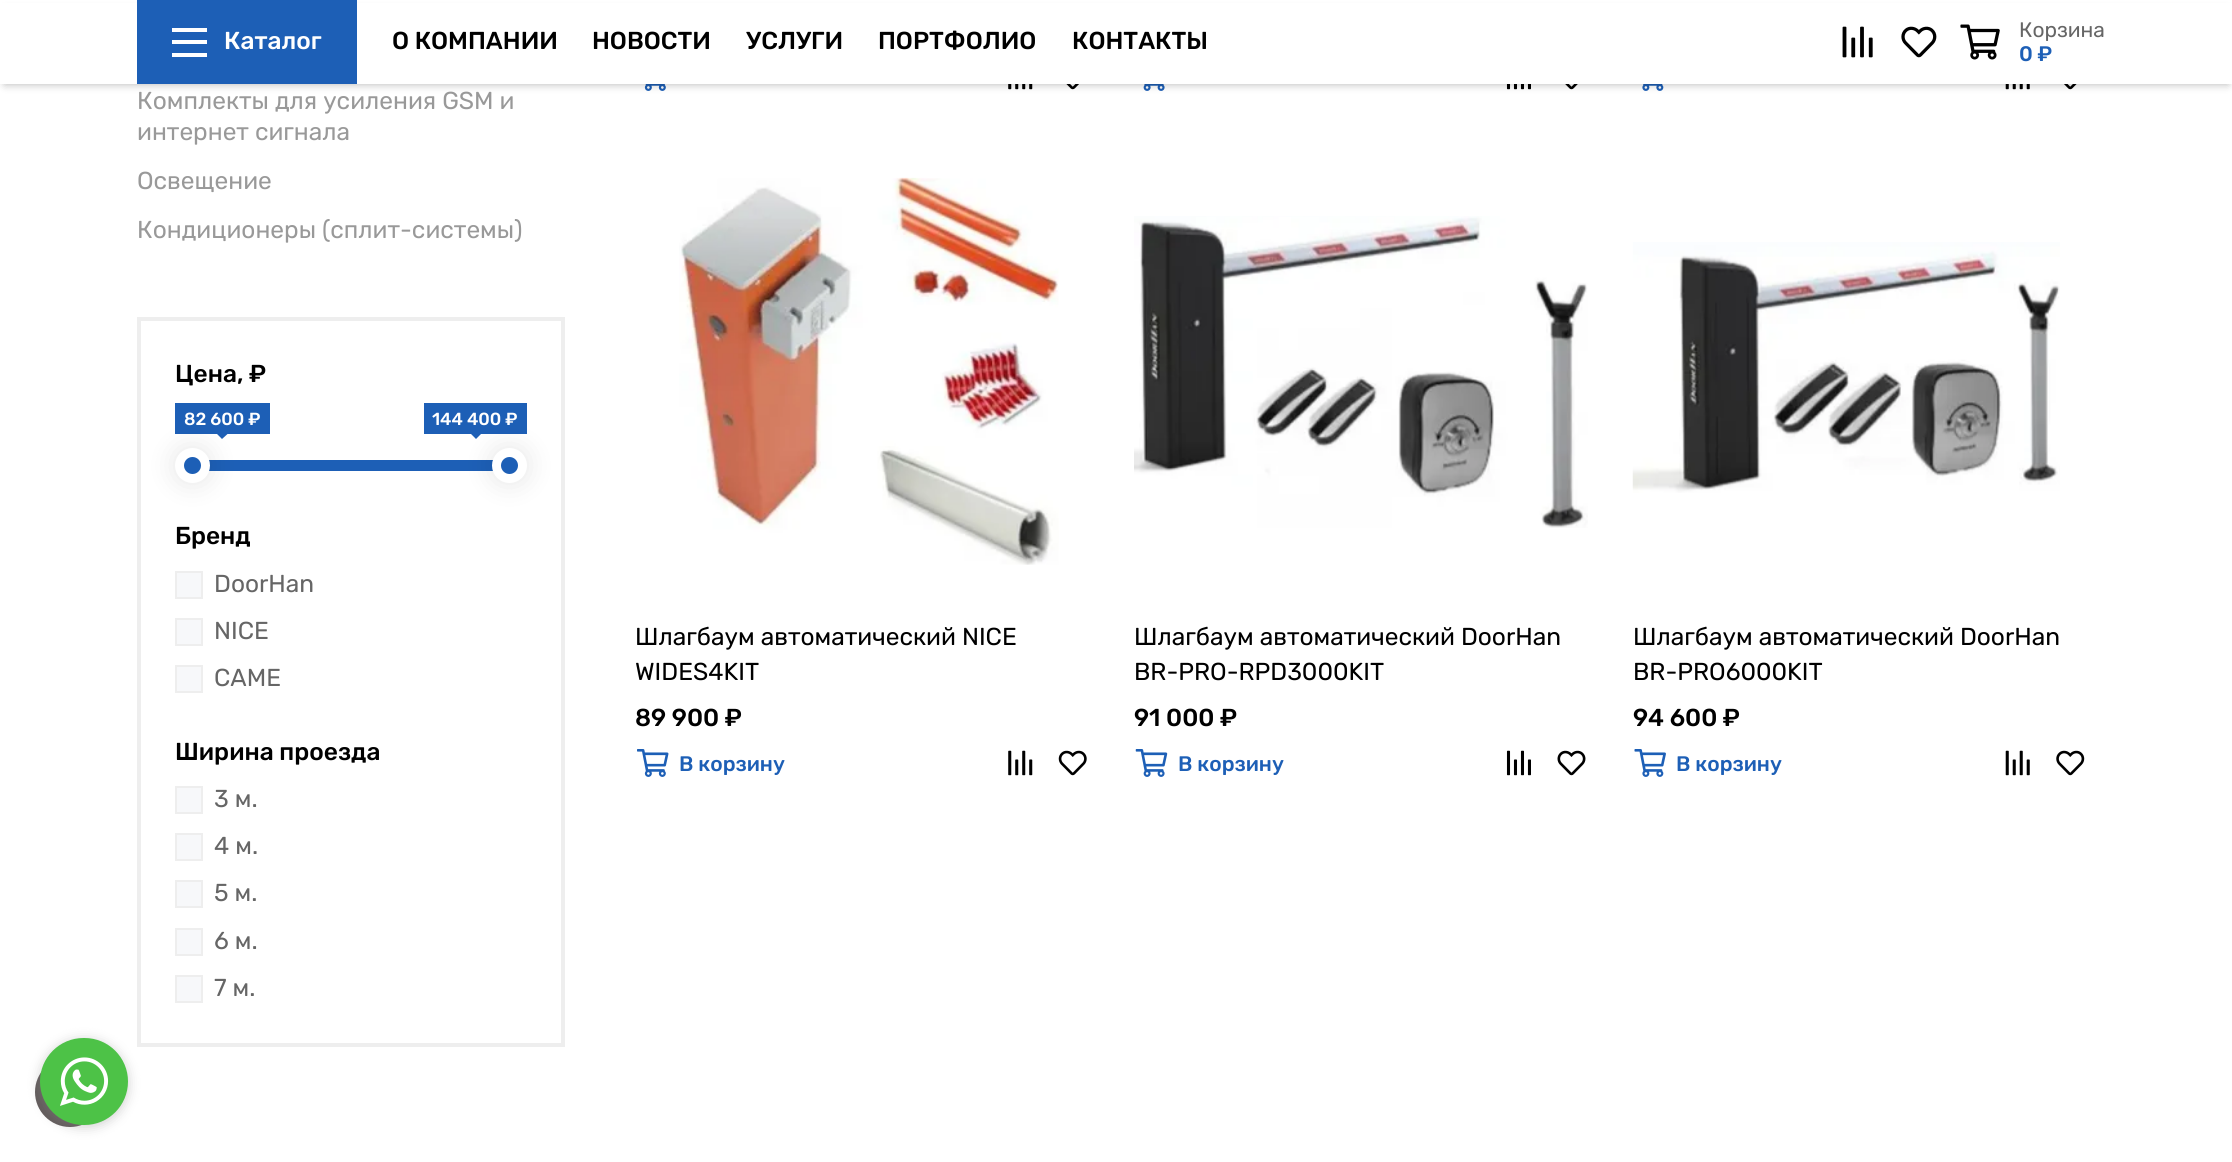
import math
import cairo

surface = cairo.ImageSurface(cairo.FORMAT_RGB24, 2232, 1162)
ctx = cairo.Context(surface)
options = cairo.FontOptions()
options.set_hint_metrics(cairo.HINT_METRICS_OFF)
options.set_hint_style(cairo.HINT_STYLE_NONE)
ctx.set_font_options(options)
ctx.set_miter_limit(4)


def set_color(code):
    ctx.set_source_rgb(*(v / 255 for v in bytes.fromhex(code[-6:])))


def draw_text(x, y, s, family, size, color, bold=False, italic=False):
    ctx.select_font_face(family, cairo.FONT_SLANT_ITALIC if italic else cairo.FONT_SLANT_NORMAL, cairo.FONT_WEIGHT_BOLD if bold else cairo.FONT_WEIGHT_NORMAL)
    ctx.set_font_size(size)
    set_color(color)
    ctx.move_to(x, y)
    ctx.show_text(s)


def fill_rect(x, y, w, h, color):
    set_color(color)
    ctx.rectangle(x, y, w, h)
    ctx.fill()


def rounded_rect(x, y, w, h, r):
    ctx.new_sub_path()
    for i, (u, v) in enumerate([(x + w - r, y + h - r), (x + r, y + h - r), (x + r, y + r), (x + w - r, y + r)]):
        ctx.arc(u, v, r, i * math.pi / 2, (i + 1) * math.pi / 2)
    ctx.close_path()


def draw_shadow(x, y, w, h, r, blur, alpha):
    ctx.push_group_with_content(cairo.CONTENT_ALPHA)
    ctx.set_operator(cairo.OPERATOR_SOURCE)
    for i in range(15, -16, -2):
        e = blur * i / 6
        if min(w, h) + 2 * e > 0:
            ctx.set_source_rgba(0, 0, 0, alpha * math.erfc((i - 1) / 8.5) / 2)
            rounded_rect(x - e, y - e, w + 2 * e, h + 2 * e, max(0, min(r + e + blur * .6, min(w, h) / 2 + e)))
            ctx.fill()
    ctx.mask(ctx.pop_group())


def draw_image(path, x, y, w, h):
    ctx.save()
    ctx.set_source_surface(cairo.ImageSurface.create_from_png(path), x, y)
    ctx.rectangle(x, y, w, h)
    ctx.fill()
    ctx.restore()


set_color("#ffffff")
ctx.paint()
draw_image("assets/img4.png", 644, 84, 22, 7)
draw_image("assets/img5.png", 1008, 84, 25, 6)
draw_image("assets/img6.png", 1066, 84, 13, 6)
draw_image("assets/img7.png", 1143, 84, 22, 7)
draw_image("assets/img8.png", 1506, 84, 25, 6)
draw_image("assets/img9.png", 1565, 84, 13, 6)
draw_image("assets/img10.png", 1642, 84, 22, 7)
draw_image("assets/img11.png", 2005, 84, 25, 6)
draw_image("assets/img12.png", 2064, 84, 13, 6)
set_color("#000000")
draw_shadow(5, 11, 2223, 73, 0, 4.5, 0.3)
fill_rect(0, 3, 2232, 81, "#ffffff")
fill_rect(137, 0, 220, 84, "#1d5fb6")
fill_rect(172, 28, 35, 4, "#ffffff")
fill_rect(172, 40, 35, 4, "#ffffff")
fill_rect(172, 53, 35, 4, "#ffffff")
draw_text(224, 49, "Каталог", "Rubik Medium", 24.5, "#ffffff")
draw_text(392, 49, "О КОМПАНИИ", "Rubik Medium", 24.5, "#000000")
draw_text(592, 49, "НОВОСТИ", "Rubik Medium", 24.5, "#000000")
draw_text(746, 49, "УСЛУГИ", "Rubik Medium", 24.5, "#000000")
draw_text(878, 49, "ПОРТФОЛИО", "Rubik Medium", 24.5, "#000000")
draw_text(1072, 49, "КОНТАКТЫ", "Rubik Medium", 24.5, "#000000")
draw_image("assets/img1.png", 1842, 26, 31, 32)
draw_image("assets/img2.png", 1901, 26, 36, 32)
draw_image("assets/img3.png", 1960, 24, 40, 36)
draw_text(2019, 37, "Корзина", "Rubik", 21, "#666666")
draw_text(2019, 61, "0 ₽", "Rubik Medium", 21, "#1d5fb6")
draw_text(137, 109, "Комплекты для усиления GSM и", "Rubik", 24.5, "#999999")
draw_text(137, 140, "интернет сигнала", "Rubik", 24.5, "#999999")
draw_text(137, 189, "Освещение", "Rubik", 24.5, "#999999")
draw_text(137, 238, "Кондиционеры (сплит-системы)", "Rubik", 24.5, "#999999")
ctx.rectangle(139, 319, 424, 726)
set_color("#eeeeee")
ctx.set_line_width(4)
ctx.stroke()
draw_text(175, 382, "Цена, ₽", "Rubik Medium", 24.5, "#000000")
fill_rect(175, 403, 95, 31, "#1d5fb6")
ctx.new_path()
ctx.move_to(217, 434)
ctx.line_to(227.5, 434)
ctx.line_to(222, 439)
ctx.close_path()
ctx.fill()
fill_rect(209, 460, 284, 11, "#1d5fb6")
set_color("#000000")
draw_shadow(175, 448, 35, 35, 17.5, 13, 0.1)
set_color("#1d5fb6")
ctx.arc(192.5, 465.5, 13, 0, 2 * math.pi)
ctx.fill_preserve()
set_color("#ffffff")
ctx.set_line_width(9)
ctx.stroke()
fill_rect(424, 403, 103, 31, "#1d5fb6")
ctx.new_path()
ctx.move_to(471, 434)
ctx.line_to(481, 434)
ctx.line_to(476, 439)
ctx.close_path()
ctx.fill()
set_color("#000000")
draw_shadow(492, 448, 35, 35, 17.5, 13, 0.1)
set_color("#1d5fb6")
ctx.arc(509.5, 465.5, 13, 0, 2 * math.pi)
ctx.fill_preserve()
set_color("#ffffff")
ctx.stroke()
draw_text(184, 425, "82 600 ₽", "Rubik Medium", 17.5, "#ffffff")
draw_text(432, 425, "144 400 ₽", "Rubik Medium", 17.5, "#ffffff")
draw_text(175, 544, "Бренд", "Rubik Medium", 24.5, "#000000")
set_color("#f7f8fa")
ctx.rectangle(176, 572, 26, 26)
ctx.fill_preserve()
set_color("#eeeeee")
ctx.set_line_width(2)
ctx.stroke()
draw_text(214, 592, "DoorHan", "Rubik", 24.5, "#666666")
set_color("#f7f8fa")
ctx.rectangle(176, 619, 26, 26)
ctx.fill_preserve()
set_color("#eeeeee")
ctx.stroke()
draw_text(214, 639, "NICE", "Rubik", 24.5, "#666666")
set_color("#f7f8fa")
ctx.rectangle(176, 666, 26, 26)
ctx.fill_preserve()
set_color("#eeeeee")
ctx.stroke()
draw_text(214, 686, "CAME", "Rubik", 24.5, "#666666")
draw_text(175, 760, "Ширина проезда", "Rubik Medium", 24.5, "#000000")
set_color("#f7f8fa")
ctx.rectangle(176, 787, 26, 26)
ctx.fill_preserve()
set_color("#eeeeee")
ctx.stroke()
draw_text(214, 807, "3 м.", "Rubik", 24.5, "#666666")
set_color("#f7f8fa")
ctx.rectangle(176, 834, 26, 26)
ctx.fill_preserve()
set_color("#eeeeee")
ctx.stroke()
draw_text(214, 854, "4 м.", "Rubik", 24.5, "#666666")
set_color("#f7f8fa")
ctx.rectangle(176, 881, 26, 26)
ctx.fill_preserve()
set_color("#eeeeee")
ctx.stroke()
draw_text(214, 901, "5 м.", "Rubik", 24.5, "#666666")
set_color("#f7f8fa")
ctx.rectangle(176, 929, 26, 26)
ctx.fill_preserve()
set_color("#eeeeee")
ctx.stroke()
draw_text(214, 949, "6 м.", "Rubik", 24.5, "#666666")
set_color("#f7f8fa")
ctx.rectangle(176, 976, 26, 26)
ctx.fill_preserve()
set_color("#eeeeee")
ctx.stroke()
draw_text(214, 996, "7 м.", "Rubik", 24.5, "#666666")
draw_image("assets/img13.png", 679, 177, 380, 388)
draw_text(635, 645, "Шлагбаум автоматический NICE", "Rubik", 24.5, "#000000")
draw_text(635, 680, "WIDES4KIT", "Rubik", 24.5, "#000000")
draw_text(635, 726, "89 900 ₽", "Rubik Medium", 24.5, "#000000")
draw_image("assets/img14.png", 637, 749, 32, 28)
draw_text(679, 771, "В корзину", "Rubik Medium", 21, "#1d5fb6")
draw_image("assets/img15.png", 1008, 750, 25, 26)
draw_image("assets/img16.png", 1058, 750, 29, 26)
draw_image("assets/img17.png", 1134, 216, 454, 312)
draw_text(1134, 645, "Шлагбаум автоматический DoorHan", "Rubik", 24.5, "#000000")
draw_text(1134, 680, "BR-PRO-RPD3000KIT", "Rubik", 24.5, "#000000")
draw_text(1134, 726, "91 000 ₽", "Rubik Medium", 24.5, "#000000")
draw_image("assets/img18.png", 1135, 749, 33, 28)
draw_text(1178, 771, "В корзину", "Rubik Medium", 21, "#1d5fb6")
draw_image("assets/img19.png", 1506, 750, 25, 26)
draw_image("assets/img20.png", 1557, 750, 29, 26)
draw_image("assets/img21.png", 1632, 242, 428, 251)
draw_text(1633, 645, "Шлагбаум автоматический DoorHan", "Rubik", 24.5, "#000000")
draw_text(1633, 680, "BR-PRO6000KIT", "Rubik", 24.5, "#000000")
draw_text(1633, 726, "94 600 ₽", "Rubik Medium", 24.5, "#000000")
draw_image("assets/img22.png", 1634, 749, 32, 28)
draw_text(1676, 771, "В корзину", "Rubik Medium", 21, "#1d5fb6")
draw_image("assets/img23.png", 2005, 750, 25, 26)
draw_image("assets/img24.png", 2056, 750, 29, 26)
set_color("#615a5a")
ctx.arc(70, 1092, 35, 0, 2 * math.pi)
ctx.fill()
set_color("#888888")
draw_shadow(40, 1040, 88, 87, 43.5, 6, 0.4)
set_color("#4dc247")
rounded_rect(40, 1038, 88, 87, 43.5)
ctx.fill()
draw_image("assets/img25.png", 60, 1057, 49, 49)
surface.write_to_png("output.png")
